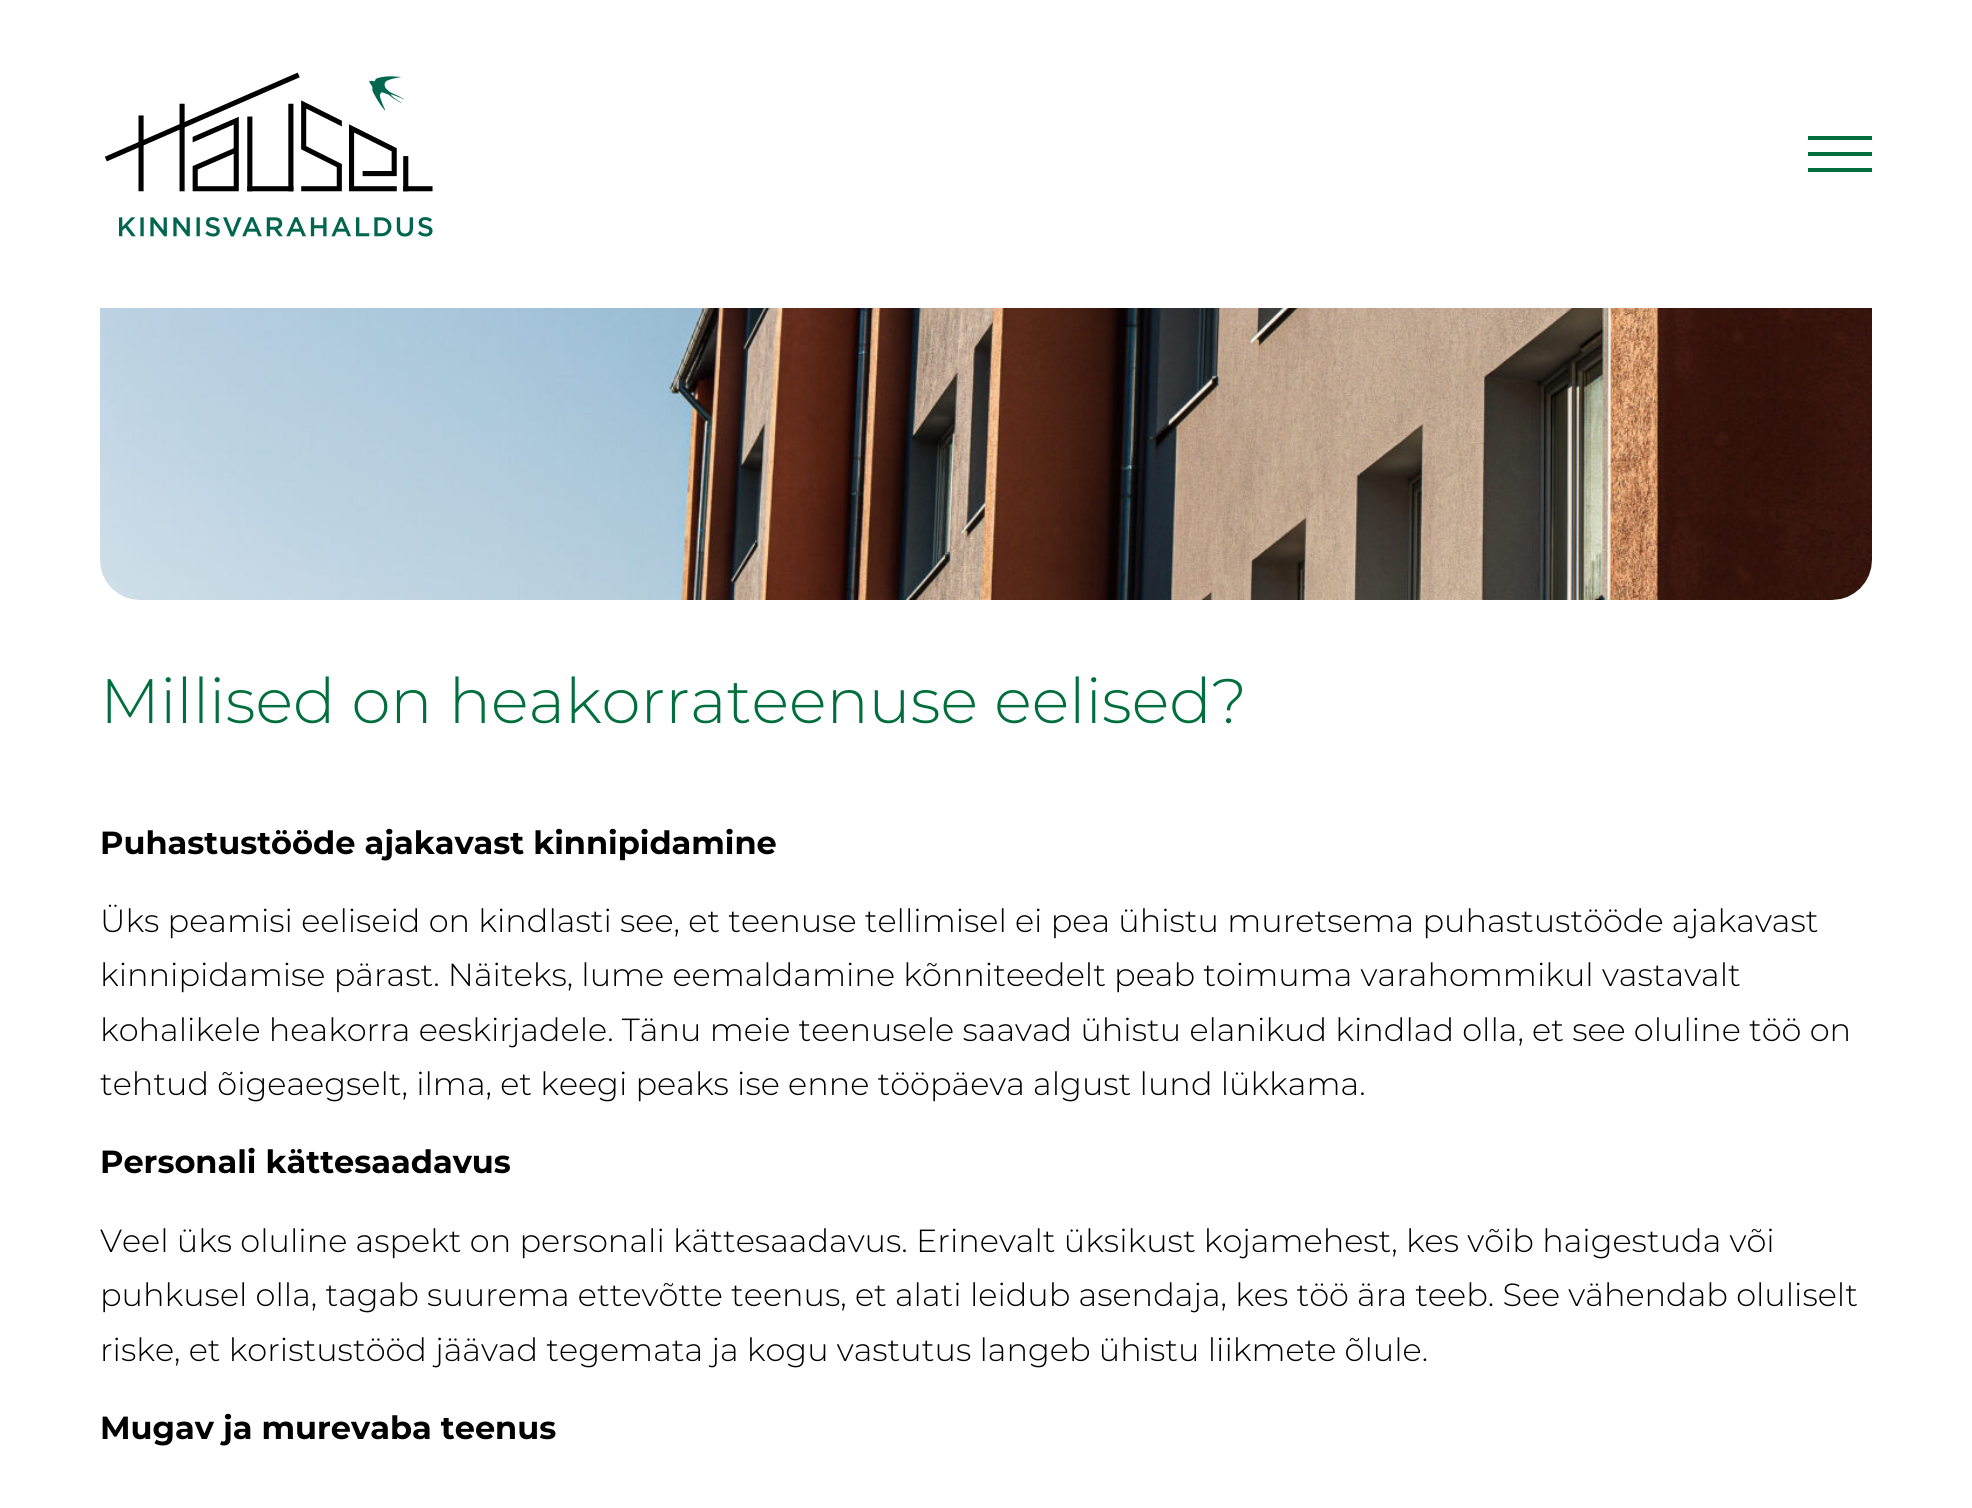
import math
import cairo

surface = cairo.ImageSurface(cairo.FORMAT_RGB24, 1972, 1508)
ctx = cairo.Context(surface)
options = cairo.FontOptions()
options.set_hint_metrics(cairo.HINT_METRICS_OFF)
options.set_hint_style(cairo.HINT_STYLE_NONE)
ctx.set_font_options(options)
ctx.set_miter_limit(4)


def set_color(code):
    ctx.set_source_rgb(*(v / 255 for v in bytes.fromhex(code[-6:])))


def draw_text(x, y, s, family, size, color, bold=False, italic=False):
    ctx.select_font_face(family, cairo.FONT_SLANT_ITALIC if italic else cairo.FONT_SLANT_NORMAL, cairo.FONT_WEIGHT_BOLD if bold else cairo.FONT_WEIGHT_NORMAL)
    ctx.set_font_size(size)
    set_color(color)
    ctx.move_to(x, y)
    ctx.show_text(s)


def fill_rect(x, y, w, h, color):
    set_color(color)
    ctx.rectangle(x, y, w, h)
    ctx.fill()


def draw_image(path, x, y, w, h):
    ctx.save()
    ctx.set_source_surface(cairo.ImageSurface.create_from_png(path), x, y)
    ctx.rectangle(x, y, w, h)
    ctx.fill()
    ctx.restore()


set_color("#ffffff")
ctx.paint()
draw_image("assets/img1.png", 104, 72, 329, 165)
fill_rect(1808, 136, 64, 4, "#016f3d")
fill_rect(1808, 152, 64, 4, "#016f3d")
fill_rect(1808, 168, 64, 4, "#016f3d")
draw_image("assets/img2.png", 100, 308, 1772, 292)
draw_text(100, 723, "Millised on heakorrateenuse eelised?", "Montserrat Light", 62.75, "#016f3d")
draw_text(100, 854, "Puhastustööde ajakavast kinnipidamine", "Montserrat", 32, "#000000", bold=True)
draw_text(100, 932, "Üks peamisi eeliseid on kindlasti see, et teenuse tellimisel ei pea ühistu muretsema puhastustööde ajakavast", "Montserrat Light", 32, "#000000")
draw_text(100, 986, "kinnipidamise pärast. Näiteks, lume eemaldamine kõnniteedelt peab toimuma varahommikul vastavalt", "Montserrat Light", 32, "#000000")
draw_text(100, 1041, "kohalikele heakorra eeskirjadele. Tänu meie teenusele saavad ühistu elanikud kindlad olla, et see oluline töö on", "Montserrat Light", 32, "#000000")
draw_text(100, 1095, "tehtud õigeaegselt, ilma, et keegi peaks ise enne tööpäeva algust lund lükkama.", "Montserrat Light", 32, "#000000")
draw_text(100, 1173, "Personali kättesaadavus", "Montserrat", 32, "#000000", bold=True)
draw_text(100, 1252, "Veel üks oluline aspekt on personali kättesaadavus. Erinevalt üksikust kojamehest, kes võib haigestuda või", "Montserrat Light", 32, "#000000")
draw_text(100, 1306, "puhkusel olla, tagab suurema ettevõtte teenus, et alati leidub asendaja, kes töö ära teeb. See vähendab oluliselt", "Montserrat Light", 32, "#000000")
draw_text(100, 1361, "riske, et koristustööd jäävad tegemata ja kogu vastutus langeb ühistu liikmete õlule.", "Montserrat Light", 32, "#000000")
draw_text(100, 1439, "Mugav ja murevaba teenus", "Montserrat", 32, "#000000", bold=True)
surface.write_to_png("output.png")
